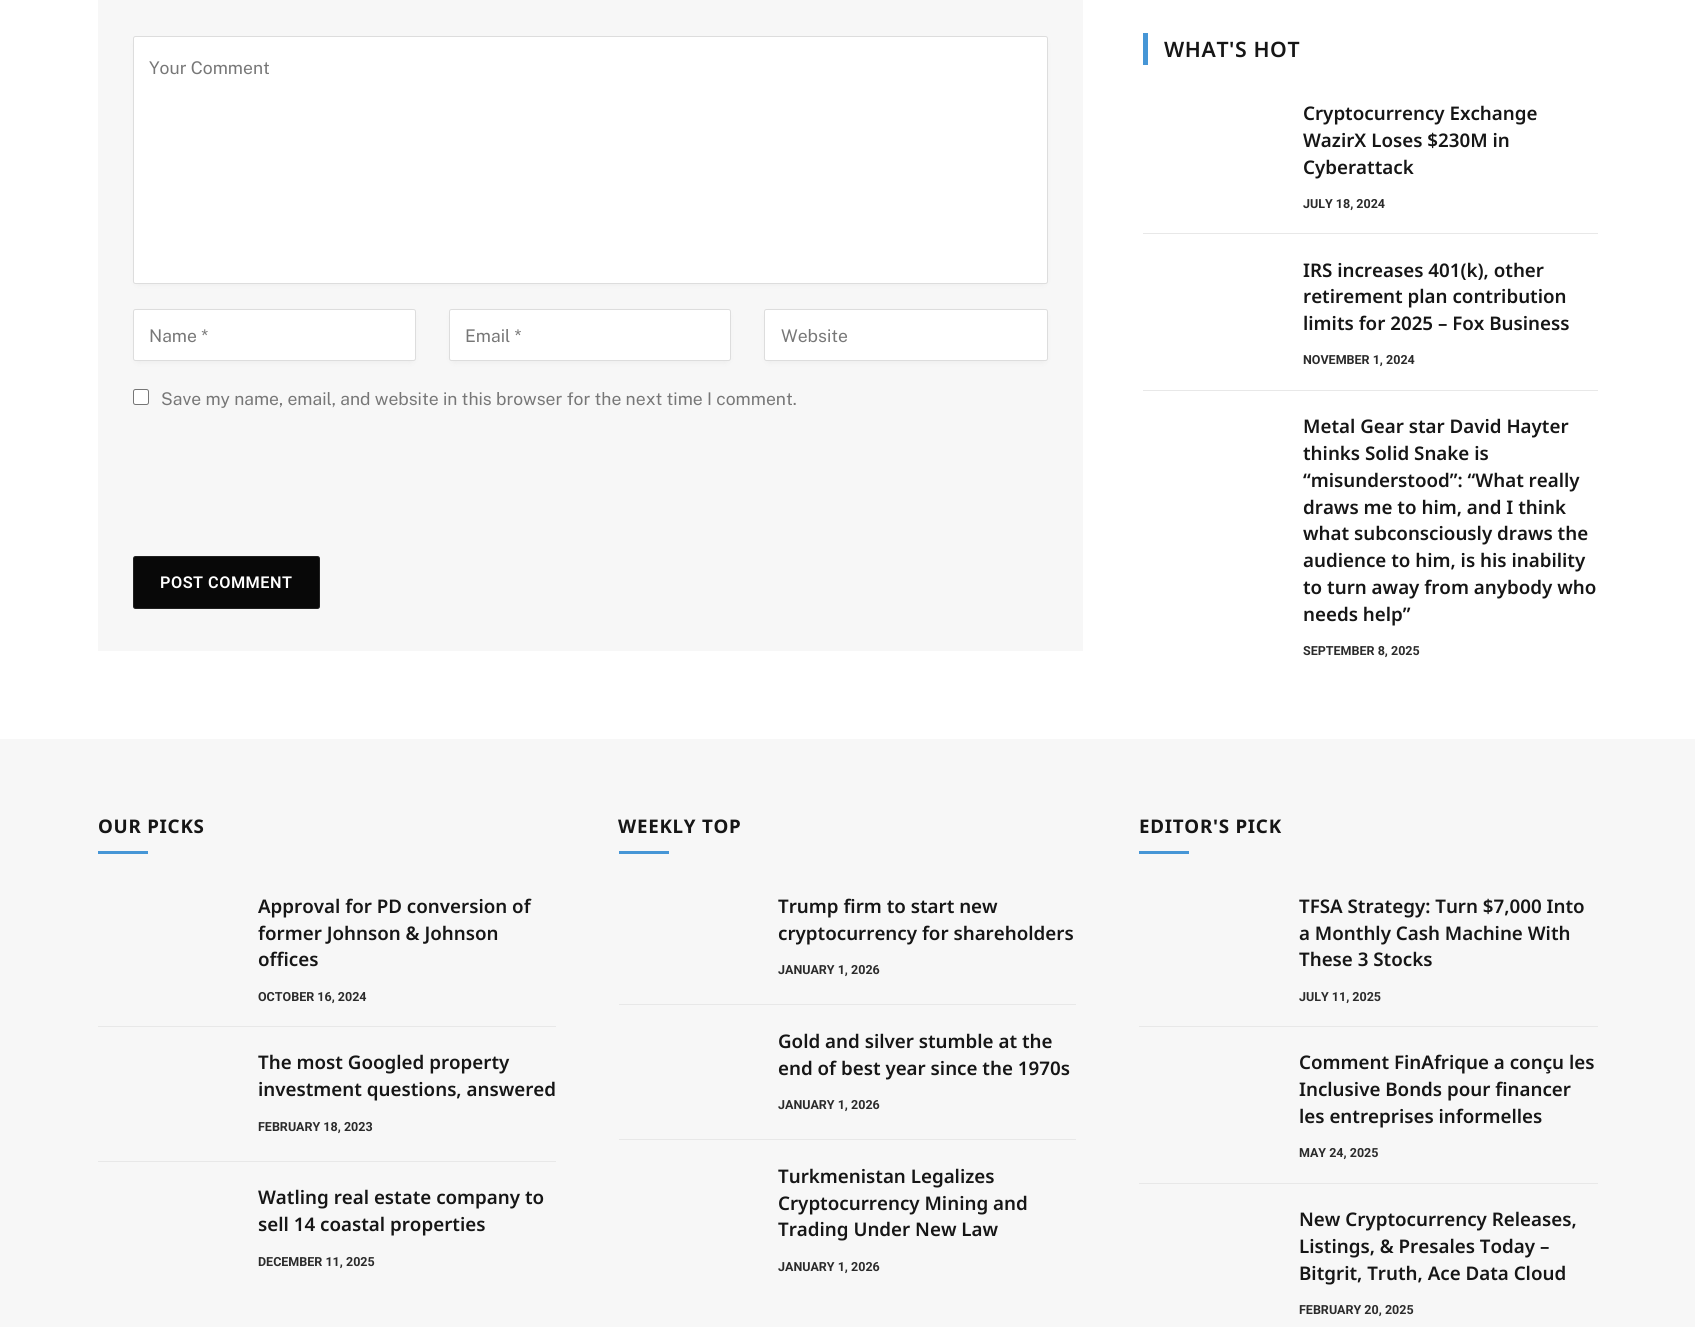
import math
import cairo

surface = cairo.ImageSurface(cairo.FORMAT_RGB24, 1695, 1327)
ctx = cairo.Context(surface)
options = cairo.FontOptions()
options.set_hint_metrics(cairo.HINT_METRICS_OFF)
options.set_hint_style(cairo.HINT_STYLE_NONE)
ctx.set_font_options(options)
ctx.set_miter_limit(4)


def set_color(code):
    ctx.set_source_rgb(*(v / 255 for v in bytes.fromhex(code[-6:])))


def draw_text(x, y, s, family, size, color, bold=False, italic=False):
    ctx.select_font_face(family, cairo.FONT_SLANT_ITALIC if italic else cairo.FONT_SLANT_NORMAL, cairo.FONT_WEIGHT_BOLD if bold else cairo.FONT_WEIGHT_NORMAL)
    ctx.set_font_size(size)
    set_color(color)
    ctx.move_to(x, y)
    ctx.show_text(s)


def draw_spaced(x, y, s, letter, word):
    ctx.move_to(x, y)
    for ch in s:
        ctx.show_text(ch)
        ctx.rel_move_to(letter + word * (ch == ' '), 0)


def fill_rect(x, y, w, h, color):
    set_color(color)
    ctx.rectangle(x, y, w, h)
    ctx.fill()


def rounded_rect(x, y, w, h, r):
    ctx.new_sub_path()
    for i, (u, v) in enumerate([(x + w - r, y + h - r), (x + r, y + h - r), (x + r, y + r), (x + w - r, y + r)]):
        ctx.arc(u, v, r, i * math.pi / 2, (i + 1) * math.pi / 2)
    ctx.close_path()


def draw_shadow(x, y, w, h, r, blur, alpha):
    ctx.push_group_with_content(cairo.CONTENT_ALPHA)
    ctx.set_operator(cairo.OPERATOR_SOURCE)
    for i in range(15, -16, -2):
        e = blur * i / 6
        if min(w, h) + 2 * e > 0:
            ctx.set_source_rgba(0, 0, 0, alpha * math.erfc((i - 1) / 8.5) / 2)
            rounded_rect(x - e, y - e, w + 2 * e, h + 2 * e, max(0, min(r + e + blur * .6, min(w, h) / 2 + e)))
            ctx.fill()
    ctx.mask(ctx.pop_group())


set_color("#ffffff")
ctx.paint()
fill_rect(98, 0, 985, 651, "#f7f7f7")
set_color("#000000")
draw_shadow(138, 44, 905, 237, 0, 4.5, 0.1)
set_color("#ffffff")
rounded_rect(133.5, 36.5, 914, 247, 2)
ctx.fill_preserve()
set_color("#dddddd")
ctx.set_line_width(1)
ctx.stroke()
draw_text(149, 74, "Your Comment", "Public Sans", 17.5, "#777777")
set_color("#000000")
draw_shadow(138, 316, 273, 43, 0, 4.5, 0.1)
set_color("#ffffff")
rounded_rect(133.5, 309.5, 282, 51, 2)
ctx.fill_preserve()
set_color("#dddddd")
ctx.stroke()
draw_text(149, 342, "Name *", "Public Sans", 17.5, "#777777")
set_color("#000000")
draw_shadow(454, 316, 272, 43, 0, 4.5, 0.1)
set_color("#ffffff")
rounded_rect(449.5, 309.5, 281, 51, 2)
ctx.fill_preserve()
set_color("#dddddd")
ctx.stroke()
draw_text(465, 342, "Email *", "Public Sans", 17.5, "#777777")
set_color("#000000")
draw_shadow(769, 316, 274, 43, 0, 4.5, 0.1)
set_color("#ffffff")
rounded_rect(764.5, 309.5, 283, 51, 2)
ctx.fill_preserve()
set_color("#dddddd")
ctx.stroke()
draw_text(781, 342, "Website", "Public Sans", 17.5, "#777777")
set_color("#ffffff")
rounded_rect(133.5, 389.5, 15, 15, 2)
ctx.fill_preserve()
set_color("#767676")
ctx.stroke()
draw_text(161, 405, "Save my name, email, and website in this browser for the next time I comment.", "Public Sans", 17.5, "#777777")
set_color("#080808")
rounded_rect(133, 556, 187, 53, 2.5)
ctx.fill()
rounded_rect(133.5, 556.5, 186, 52, 2)
ctx.set_source_rgba(1, 1, 1, 0.1)
ctx.stroke()
ctx.select_font_face("Roboto SemiBold")
ctx.set_font_size(16.25)
set_color("#ffffff")
draw_spaced(160, 588, "POST COMMENT", 0.5, 0)
fill_rect(1143, 33, 5, 32, "#4696d6")
ctx.select_font_face("Noto Sans SemiBold")
ctx.set_font_size(21.25)
set_color("#161616")
draw_spaced(1164, 57, "WHAT'S HOT", 0.6, 0)
draw_text(1303, 120, "Cryptocurrency Exchange", "Noto Sans SemiBold", 18.75, "#161616")
draw_text(1303, 147, "WazirX Loses $230M in", "Noto Sans SemiBold", 18.75, "#161616")
draw_text(1303, 174, "Cyberattack", "Noto Sans SemiBold", 18.75, "#161616")
draw_text(1303, 208, "JULY 18, 2024", "Roboto", 12.5, "#2b2b2b", bold=True)
fill_rect(1143, 233, 455, 1, "#e8e8e8")
draw_text(1303, 277, "IRS increases 401(k), other", "Noto Sans SemiBold", 18.75, "#161616")
draw_text(1303, 303, "retirement plan contribution", "Noto Sans SemiBold", 18.75, "#161616")
draw_text(1303, 330, "limits for 2025 – Fox Business", "Noto Sans SemiBold", 18.75, "#161616")
draw_text(1303, 364, "NOVEMBER 1, 2024", "Roboto", 12.5, "#2b2b2b", bold=True)
fill_rect(1143, 390, 455, 1, "#e8e8e8")
draw_text(1303, 433, "Metal Gear star David Hayter", "Noto Sans SemiBold", 18.75, "#161616")
draw_text(1303, 460, "thinks Solid Snake is", "Noto Sans SemiBold", 18.75, "#161616")
draw_text(1303, 487, "“misunderstood”: “What really", "Noto Sans SemiBold", 18.75, "#161616")
draw_text(1303, 514, "draws me to him, and I think", "Noto Sans SemiBold", 18.75, "#161616")
draw_text(1303, 540, "what subconsciously draws the", "Noto Sans SemiBold", 18.75, "#161616")
draw_text(1303, 567, "audience to him, is his inability", "Noto Sans SemiBold", 18.75, "#161616")
draw_text(1303, 594, "to turn away from anybody who", "Noto Sans SemiBold", 18.75, "#161616")
draw_text(1303, 621, "needs help”", "Noto Sans SemiBold", 18.75, "#161616")
draw_text(1303, 655, "SEPTEMBER 8, 2025", "Roboto", 12.5, "#2b2b2b", bold=True)
fill_rect(0, 739, 1695, 588, "#f7f7f7")
ctx.select_font_face("Noto Sans", cairo.FONT_SLANT_NORMAL, cairo.FONT_WEIGHT_BOLD)
ctx.set_font_size(18.75)
set_color("#161616")
draw_spaced(98, 833, "OUR PICKS", 0.75, 0)
fill_rect(98, 851, 50, 3, "#4696d6")
draw_text(258, 913, "Approval for PD conversion of", "Noto Sans SemiBold", 18.75, "#161616")
draw_text(258, 940, "former Johnson & Johnson", "Noto Sans SemiBold", 18.75, "#161616")
draw_text(258, 966, "offices", "Noto Sans SemiBold", 18.75, "#161616")
draw_text(258, 1001, "OCTOBER 16, 2024", "Roboto", 12.5, "#2b2b2b", bold=True)
fill_rect(98, 1026, 458, 1, "#e8e8e8")
draw_text(258, 1069, "The most Googled property", "Noto Sans SemiBold", 18.75, "#161616")
draw_text(258, 1096, "investment questions, answered", "Noto Sans SemiBold", 18.75, "#161616")
draw_text(258, 1131, "FEBRUARY 18, 2023", "Roboto", 12.5, "#2b2b2b", bold=True)
fill_rect(98, 1161, 458, 1, "#e8e8e8")
draw_text(258, 1204, "Watling real estate company to", "Noto Sans SemiBold", 18.75, "#161616")
draw_text(258, 1231, "sell 14 coastal properties", "Noto Sans SemiBold", 18.75, "#161616")
draw_text(258, 1266, "DECEMBER 11, 2025", "Roboto", 12.5, "#2b2b2b", bold=True)
ctx.select_font_face("Noto Sans", cairo.FONT_SLANT_NORMAL, cairo.FONT_WEIGHT_BOLD)
ctx.set_font_size(18.75)
set_color("#161616")
draw_spaced(618, 833, "WEEKLY TOP", 0.75, 0)
fill_rect(619, 851, 50, 3, "#4696d6")
draw_text(778, 913, "Trump firm to start new", "Noto Sans SemiBold", 18.75, "#161616")
draw_text(778, 940, "cryptocurrency for shareholders", "Noto Sans SemiBold", 18.75, "#161616")
draw_text(778, 974, "JANUARY 1, 2026", "Roboto", 12.5, "#2b2b2b", bold=True)
fill_rect(619, 1004, 457, 1, "#e8e8e8")
draw_text(778, 1048, "Gold and silver stumble at the", "Noto Sans SemiBold", 18.75, "#161616")
draw_text(778, 1075, "end of best year since the 1970s", "Noto Sans SemiBold", 18.75, "#161616")
draw_text(778, 1109, "JANUARY 1, 2026", "Roboto", 12.5, "#2b2b2b", bold=True)
fill_rect(619, 1139, 457, 1, "#e8e8e8")
draw_text(778, 1183, "Turkmenistan Legalizes", "Noto Sans SemiBold", 18.75, "#161616")
draw_text(778, 1210, "Cryptocurrency Mining and", "Noto Sans SemiBold", 18.75, "#161616")
draw_text(778, 1236, "Trading Under New Law", "Noto Sans SemiBold", 18.75, "#161616")
draw_text(778, 1271, "JANUARY 1, 2026", "Roboto", 12.5, "#2b2b2b", bold=True)
ctx.select_font_face("Noto Sans", cairo.FONT_SLANT_NORMAL, cairo.FONT_WEIGHT_BOLD)
ctx.set_font_size(18.75)
set_color("#161616")
draw_spaced(1139, 833, "EDITOR'S PICK", 0.75, 0)
fill_rect(1139, 851, 50, 3, "#4696d6")
draw_text(1299, 913, "TFSA Strategy: Turn $7,000 Into", "Noto Sans SemiBold", 18.75, "#161616")
draw_text(1299, 940, "a Monthly Cash Machine With", "Noto Sans SemiBold", 18.75, "#161616")
draw_text(1299, 966, "These 3 Stocks", "Noto Sans SemiBold", 18.75, "#161616")
draw_text(1299, 1001, "JULY 11, 2025", "Roboto", 12.5, "#2b2b2b", bold=True)
fill_rect(1139, 1026, 459, 1, "#e8e8e8")
draw_text(1299, 1069, "Comment FinAfrique a conçu les", "Noto Sans SemiBold", 18.75, "#161616")
draw_text(1299, 1096, "Inclusive Bonds pour financer", "Noto Sans SemiBold", 18.75, "#161616")
draw_text(1299, 1123, "les entreprises informelles", "Noto Sans SemiBold", 18.75, "#161616")
draw_text(1299, 1157, "MAY 24, 2025", "Roboto", 12.5, "#2b2b2b", bold=True)
fill_rect(1139, 1183, 459, 1, "#e8e8e8")
draw_text(1299, 1226, "New Cryptocurrency Releases,", "Noto Sans SemiBold", 18.75, "#161616")
draw_text(1299, 1253, "Listings, & Presales Today –", "Noto Sans SemiBold", 18.75, "#161616")
draw_text(1299, 1280, "Bitgrit, Truth, Ace Data Cloud", "Noto Sans SemiBold", 18.75, "#161616")
draw_text(1299, 1314, "FEBRUARY 20, 2025", "Roboto", 12.5, "#2b2b2b", bold=True)
surface.write_to_png("output.png")
